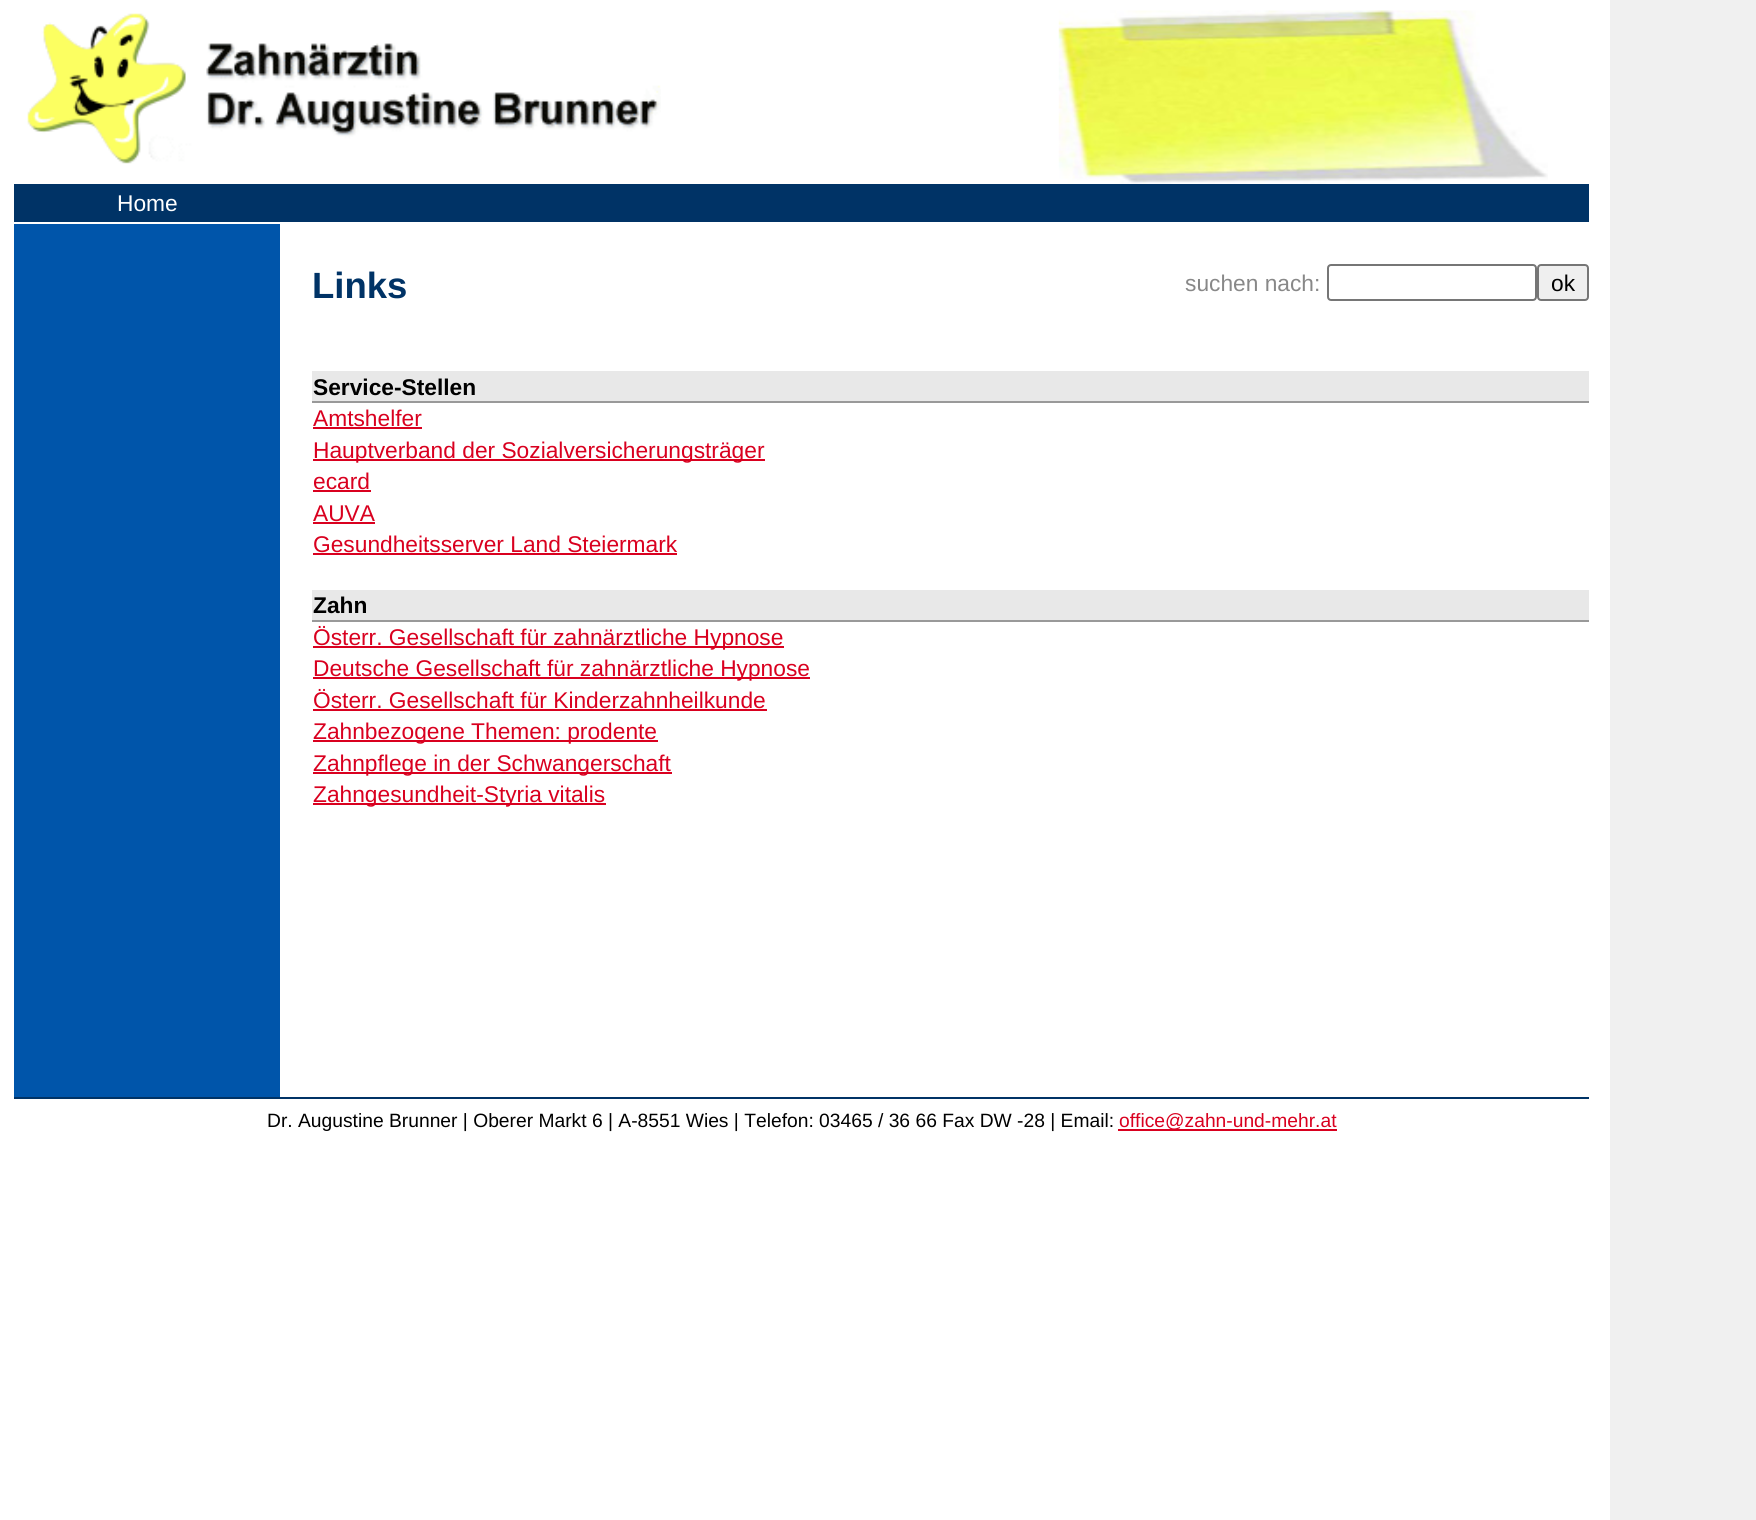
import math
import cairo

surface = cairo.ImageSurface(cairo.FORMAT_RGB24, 1756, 1520)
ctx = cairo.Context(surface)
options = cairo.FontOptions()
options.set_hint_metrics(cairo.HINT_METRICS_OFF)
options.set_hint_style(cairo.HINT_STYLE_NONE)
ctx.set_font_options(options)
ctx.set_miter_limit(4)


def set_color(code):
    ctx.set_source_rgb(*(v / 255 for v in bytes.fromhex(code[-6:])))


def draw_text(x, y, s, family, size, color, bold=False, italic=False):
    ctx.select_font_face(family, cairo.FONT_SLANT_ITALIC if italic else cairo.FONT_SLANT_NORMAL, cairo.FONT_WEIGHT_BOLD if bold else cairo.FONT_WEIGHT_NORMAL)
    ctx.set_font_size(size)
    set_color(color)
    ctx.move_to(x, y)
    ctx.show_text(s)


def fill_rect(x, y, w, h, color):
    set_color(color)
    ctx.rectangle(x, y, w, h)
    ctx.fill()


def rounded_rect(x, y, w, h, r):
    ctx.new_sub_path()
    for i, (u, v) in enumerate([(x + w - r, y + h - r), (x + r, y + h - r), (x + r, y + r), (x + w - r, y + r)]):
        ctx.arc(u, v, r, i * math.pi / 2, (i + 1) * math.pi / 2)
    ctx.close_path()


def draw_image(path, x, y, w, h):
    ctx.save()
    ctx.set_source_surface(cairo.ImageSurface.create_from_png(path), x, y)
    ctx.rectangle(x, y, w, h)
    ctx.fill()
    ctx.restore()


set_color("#ffffff")
ctx.paint()
fill_rect(1610, 0, 146, 1520, "#f0f0f0")
draw_image("assets/img1.png", 27, 13, 634, 151)
draw_image("assets/img2.png", 1058, 10, 490, 174)
fill_rect(14, 184, 1575, 38, "#003366")
draw_text(117, 211, "Home", "Liberation Sans", 22.75, "#ffffff")
fill_rect(14, 224, 266, 873, "#0055aa")
draw_text(312, 298, "Links", "Liberation Sans", 36.5, "#003366", bold=True)
draw_text(1185, 291, "suchen nach:", "Liberation Sans", 22.75, "#888888")
rounded_rect(1328, 265, 208, 35, 3)
set_color("#767676")
ctx.stroke()
set_color("#efefef")
rounded_rect(1538, 265, 50, 35, 3)
ctx.fill_preserve()
set_color("#767676")
ctx.stroke()
draw_text(1551, 291, "ok", "Liberation Sans", 22.75, "#000000")
fill_rect(312, 371, 1277, 30, "#e8e8e8")
fill_rect(312, 401, 1277, 2, "#999999")
draw_text(313, 395, "Service-Stellen", "Liberation Sans", 22.75, "#000000", bold=True)
draw_text(313, 426, "Amtshelfer", "Liberation Sans", 22.75, "#d9001f")
fill_rect(313, 427, 109, 2, "#d9001f")
fill_rect(313, 459, 452, 2, "#d9001f")
draw_text(313, 458, "Hauptverband der Sozialversicherungsträger", "Liberation Sans", 22.75, "#d9001f")
draw_text(313, 489, "ecard", "Liberation Sans", 22.75, "#d9001f")
fill_rect(313, 490, 58, 2, "#d9001f")
draw_text(313, 521, "AUVA", "Liberation Sans", 22.75, "#d9001f")
fill_rect(313, 522, 62, 2, "#d9001f")
draw_text(313, 552, "Gesundheitsserver Land Steiermark", "Liberation Sans", 22.75, "#d9001f")
fill_rect(313, 553, 364, 2, "#d9001f")
fill_rect(312, 590, 1277, 30, "#e8e8e8")
fill_rect(312, 620, 1277, 2, "#999999")
draw_text(313, 613, "Zahn", "Liberation Sans", 22.75, "#000000", bold=True)
fill_rect(313, 646, 471, 2, "#d9001f")
draw_text(313, 645, "Österr. Gesellschaft für zahnärztliche Hypnose", "Liberation Sans", 22.75, "#d9001f")
fill_rect(313, 677, 497, 2, "#d9001f")
draw_text(313, 676, "Deutsche Gesellschaft für zahnärztliche Hypnose", "Liberation Sans", 22.75, "#d9001f")
draw_text(313, 708, "Österr. Gesellschaft für Kinderzahnheilkunde", "Liberation Sans", 22.75, "#d9001f")
fill_rect(313, 709, 454, 2, "#d9001f")
fill_rect(313, 740, 345, 2, "#d9001f")
draw_text(313, 739, "Zahnbezogene Themen: prodente", "Liberation Sans", 22.75, "#d9001f")
fill_rect(313, 772, 359, 2, "#d9001f")
draw_text(313, 771, "Zahnpflege in der Schwangerschaft", "Liberation Sans", 22.75, "#d9001f")
fill_rect(313, 803, 293, 2, "#d9001f")
draw_text(313, 802, "Zahngesundheit-Styria vitalis", "Liberation Sans", 22.75, "#d9001f")
fill_rect(14, 1097, 1575, 2, "#003366")
draw_text(267, 1127, "Dr. Augustine Brunner | Oberer Markt 6 | A-8551 Wies | Telefon: 03465 / 36 66 Fax DW -28 | Email:", "Liberation Sans", 19.25, "#000000")
fill_rect(1118, 1129, 219, 2, "#d9001f")
draw_text(1119, 1127, "office@zahn-und-mehr.at", "Liberation Sans", 19.25, "#d9001f")
surface.write_to_png("output.png")
